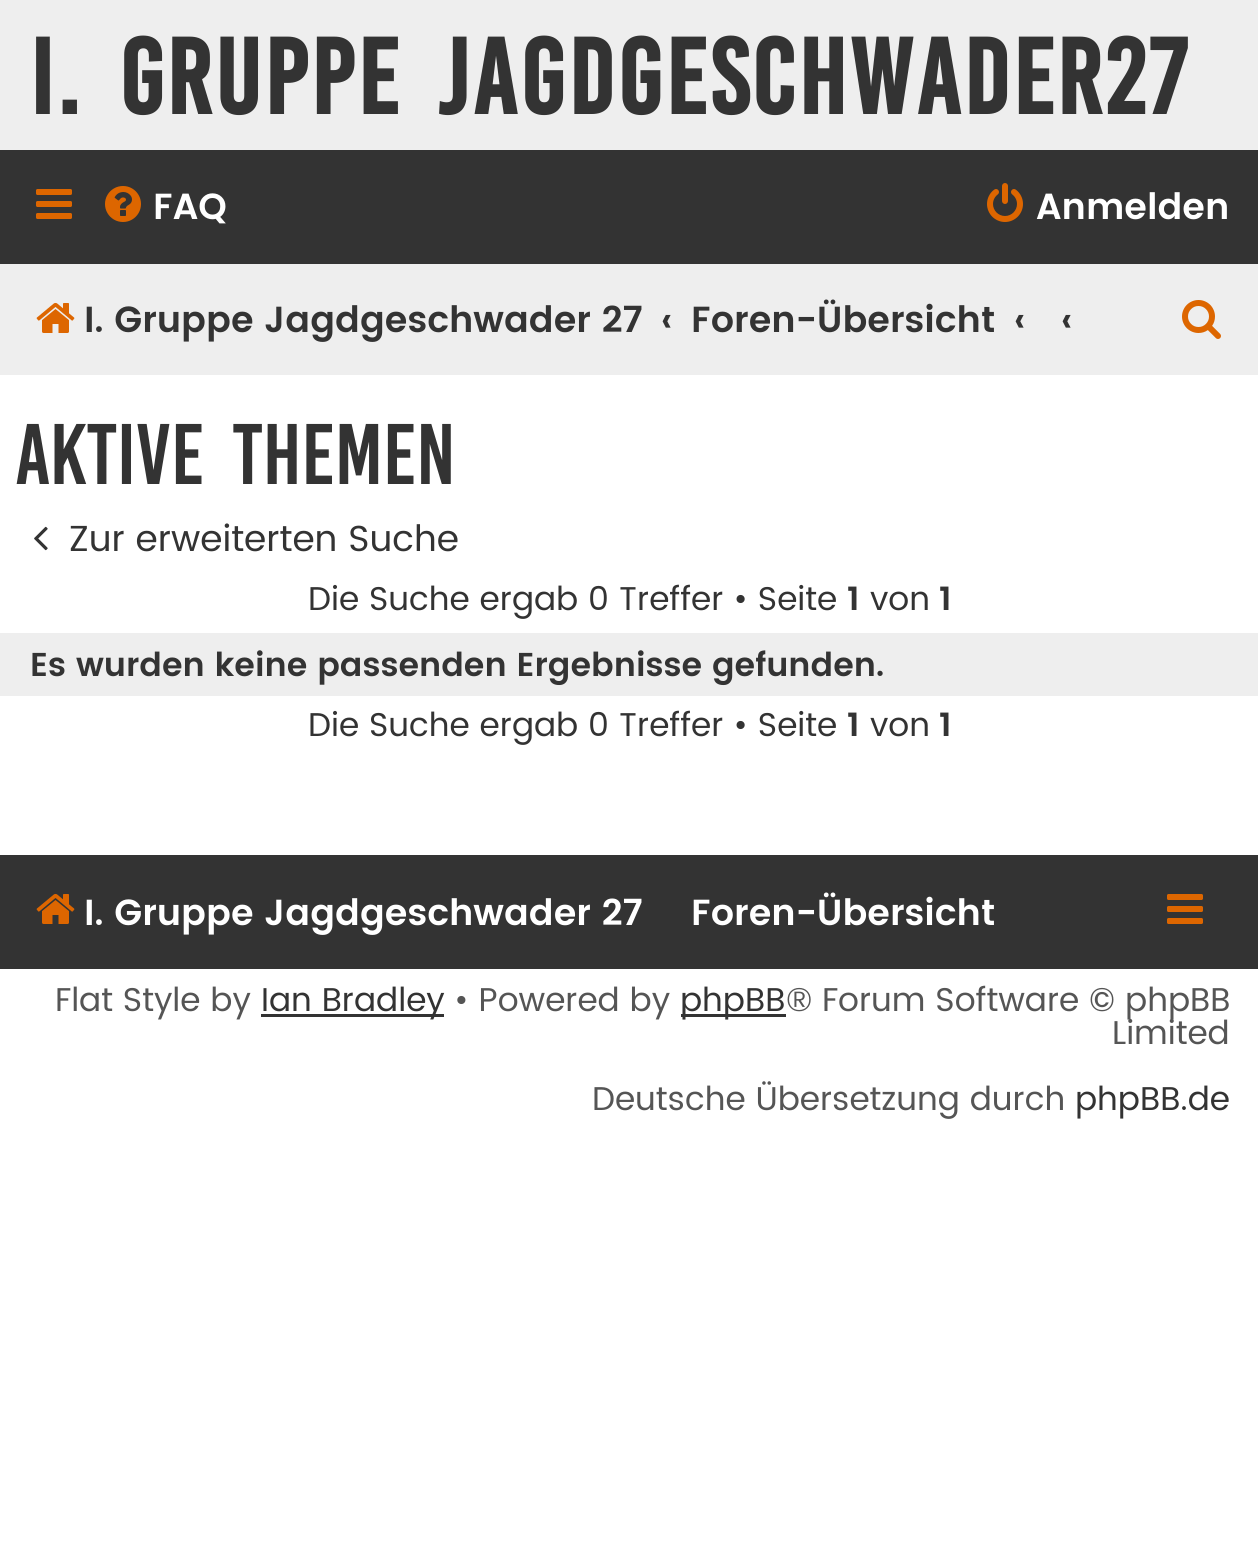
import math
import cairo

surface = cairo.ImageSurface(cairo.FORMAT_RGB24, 1258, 1544)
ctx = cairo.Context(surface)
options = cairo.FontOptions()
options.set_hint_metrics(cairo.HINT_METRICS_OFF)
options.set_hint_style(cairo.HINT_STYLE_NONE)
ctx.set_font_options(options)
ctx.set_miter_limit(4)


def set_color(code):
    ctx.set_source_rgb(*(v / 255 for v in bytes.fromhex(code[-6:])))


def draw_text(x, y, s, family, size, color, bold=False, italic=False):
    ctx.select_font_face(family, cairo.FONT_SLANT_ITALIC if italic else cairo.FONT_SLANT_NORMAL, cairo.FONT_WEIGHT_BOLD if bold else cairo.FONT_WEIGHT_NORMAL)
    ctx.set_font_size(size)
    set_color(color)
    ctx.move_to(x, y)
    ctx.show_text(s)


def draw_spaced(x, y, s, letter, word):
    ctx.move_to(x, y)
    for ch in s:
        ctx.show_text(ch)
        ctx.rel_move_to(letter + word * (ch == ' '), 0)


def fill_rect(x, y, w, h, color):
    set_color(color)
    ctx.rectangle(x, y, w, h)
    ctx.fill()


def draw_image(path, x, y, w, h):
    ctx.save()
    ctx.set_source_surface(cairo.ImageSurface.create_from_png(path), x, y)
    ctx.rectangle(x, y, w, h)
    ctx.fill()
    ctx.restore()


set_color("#ffffff")
ctx.paint()
fill_rect(0, 0, 1258, 150, "#eeeeee")
ctx.select_font_face("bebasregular", cairo.FONT_SLANT_NORMAL, cairo.FONT_WEIGHT_BOLD)
ctx.set_font_size(82.5)
set_color("#333333")
draw_spaced(30, 114, "I. Gruppe Jagdgeschwader27", 3, 12)
fill_rect(0, 150, 1258, 114, "#333333")
draw_image("assets/img1.png", 36, 189, 36, 30)
draw_image("assets/img2.png", 105, 186, 36, 36)
draw_text(153, 219, "FAQ", "Poppins SemiBold", 36.25, "#ffffff")
draw_image("assets/img3.png", 987, 183, 36, 39)
draw_text(1036, 219, "Anmelden", "Poppins SemiBold", 36.25, "#ffffff")
fill_rect(0, 264, 1258, 111, "#eeeeee")
draw_image("assets/img4.png", 36, 302, 39, 31)
ctx.save()
ctx.rectangle(30, 282, 612, 78)
ctx.clip()
draw_text(84, 332, "I. Gruppe Jagdgeschwader 27", "Poppins SemiBold", 36.25, "#333333")
ctx.restore()
draw_text(661, 332, "‹", "Poppins SemiBold", 36.25, "#333333")
draw_text(691, 332, "Foren-Übersicht", "Poppins SemiBold", 36.25, "#333333")
draw_text(1014, 332, "‹", "Poppins SemiBold", 36.25, "#333333")
draw_text(1061, 332, "‹", "Poppins SemiBold", 36.25, "#333333")
draw_image("assets/img5.png", 1182, 300, 39, 39)
ctx.select_font_face("bebasregular")
ctx.set_font_size(66)
draw_spaced(15, 484, "Aktive Themen", 0, 12)
draw_image("assets/img6.png", 34, 526, 14, 25)
draw_text(69, 551, "Zur erweiterten Suche", "Poppins", 36.25, "#333333")
draw_text(308, 610, "Die Suche ergab 0 Treffer • Seite", "Poppins", 33, "#333333")
draw_text(847, 610, "1", "Poppins SemiBold", 33, "#333333")
draw_text(870, 610, "von", "Poppins", 33, "#333333")
draw_text(939, 610, "1", "Poppins SemiBold", 33, "#333333")
fill_rect(0, 633, 1258, 63, "#eeeeee")
draw_text(30, 676, "Es wurden keine passenden Ergebnisse gefunden.", "Poppins SemiBold", 33, "#333333")
draw_text(308, 736, "Die Suche ergab 0 Treffer • Seite", "Poppins", 33, "#333333")
draw_text(847, 736, "1", "Poppins SemiBold", 33, "#333333")
draw_text(870, 736, "von", "Poppins", 33, "#333333")
draw_text(939, 736, "1", "Poppins SemiBold", 33, "#333333")
fill_rect(0, 855, 1258, 114, "#333333")
draw_image("assets/img7.png", 36, 893, 39, 31)
ctx.save()
ctx.rectangle(30, 873, 612, 81)
ctx.clip()
draw_text(84, 925, "I. Gruppe Jagdgeschwader 27", "Poppins SemiBold", 36.25, "#ffffff")
ctx.restore()
draw_text(691, 925, "Foren-Übersicht", "Poppins SemiBold", 36.25, "#ffffff")
draw_image("assets/img1.png", 1167, 894, 36, 30)
draw_text(55, 1011, "Flat Style by", "Poppins", 33, "#555555")
fill_rect(261, 1014, 183, 3, "#333333")
draw_text(261, 1011, "Ian Bradley", "Poppins", 33, "#333333")
draw_text(454, 1011, "• Powered by", "Poppins", 33, "#555555")
fill_rect(681, 1014, 105, 3, "#333333")
draw_text(680, 1011, "phpBB", "Poppins", 33, "#333333")
draw_text(786, 1011, "® Forum Software © phpBB", "Poppins", 33, "#555555")
draw_text(1112, 1044, "Limited", "Poppins", 33, "#555555")
draw_text(592, 1110, "Deutsche Übersetzung durch", "Poppins", 33, "#555555")
draw_text(1075, 1110, "phpBB.de", "Poppins", 33, "#333333")
surface.write_to_png("output.png")
